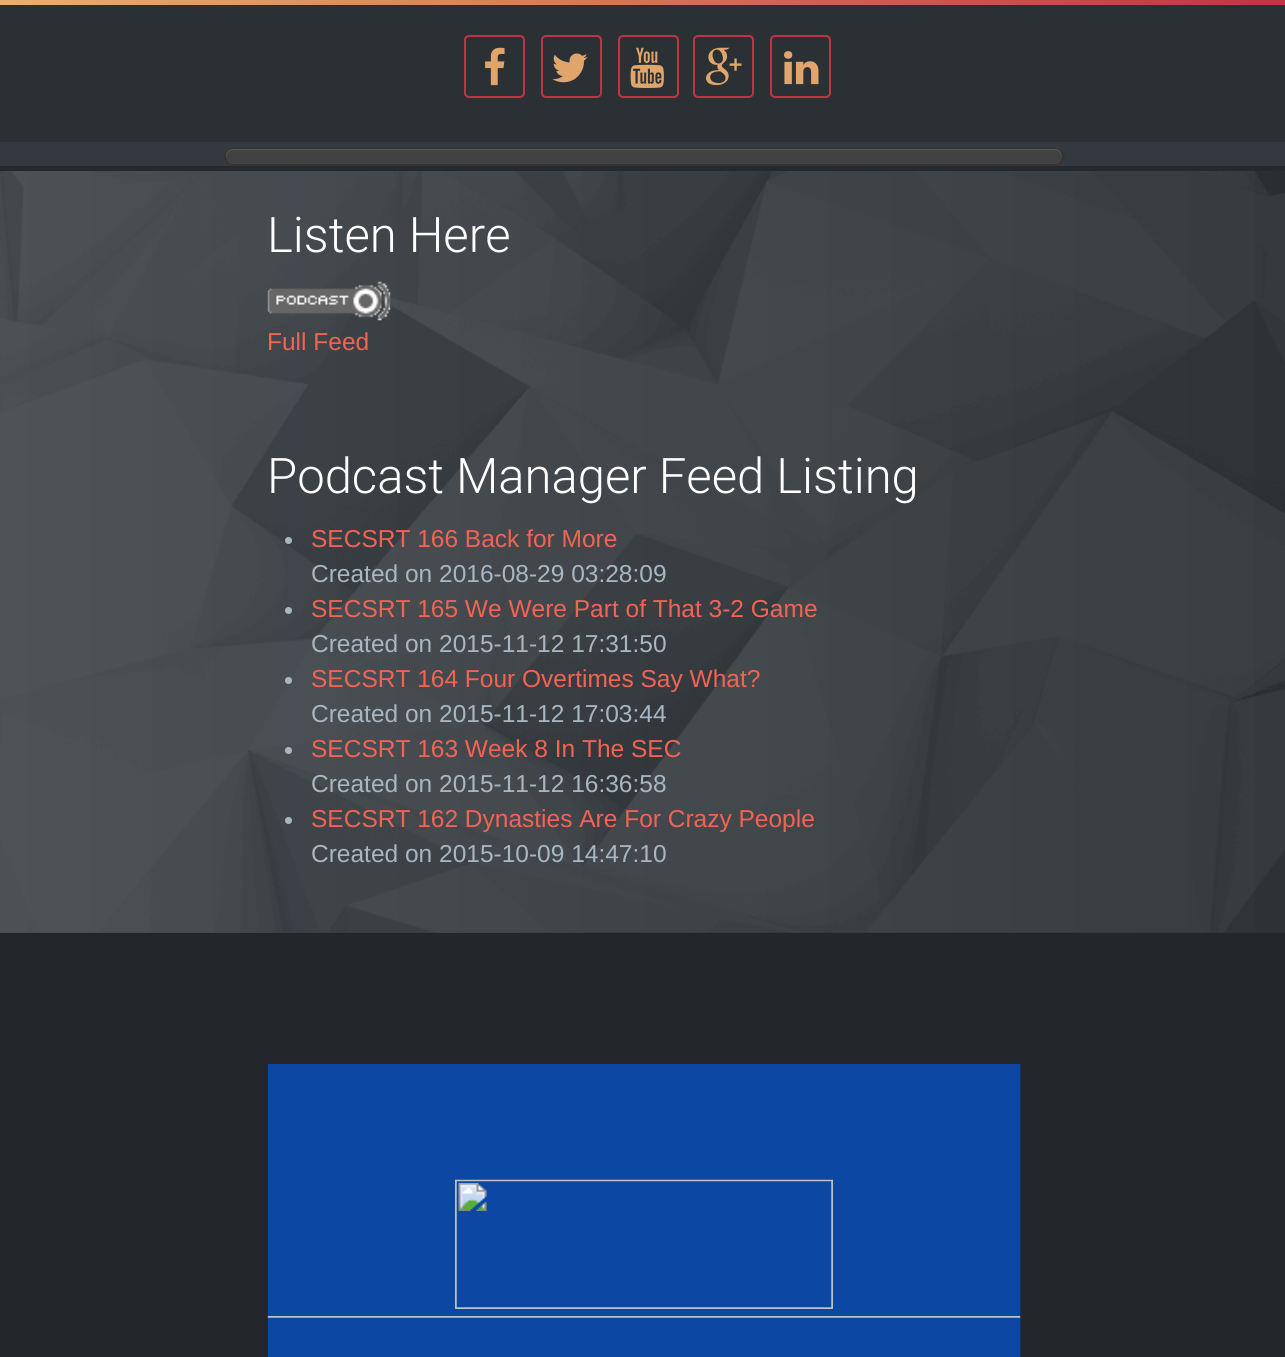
import math
import cairo

surface = cairo.ImageSurface(cairo.FORMAT_RGB24, 1285, 1357)
ctx = cairo.Context(surface)
options = cairo.FontOptions()
options.set_hint_metrics(cairo.HINT_METRICS_OFF)
options.set_hint_style(cairo.HINT_STYLE_NONE)
ctx.set_font_options(options)
ctx.set_miter_limit(4)


def set_color(code):
    ctx.set_source_rgb(*(v / 255 for v in bytes.fromhex(code[-6:])))


def draw_text(x, y, s, family, size, color, bold=False, italic=False):
    ctx.select_font_face(family, cairo.FONT_SLANT_ITALIC if italic else cairo.FONT_SLANT_NORMAL, cairo.FONT_WEIGHT_BOLD if bold else cairo.FONT_WEIGHT_NORMAL)
    ctx.set_font_size(size)
    set_color(color)
    ctx.move_to(x, y)
    ctx.show_text(s)


def fill_rect(x, y, w, h, color):
    set_color(color)
    ctx.rectangle(x, y, w, h)
    ctx.fill()


def rounded_rect(x, y, w, h, r):
    ctx.new_sub_path()
    for i, (u, v) in enumerate([(x + w - r, y + h - r), (x + r, y + h - r), (x + r, y + r), (x + w - r, y + r)]):
        ctx.arc(u, v, r, i * math.pi / 2, (i + 1) * math.pi / 2)
    ctx.close_path()


def draw_image(path, x, y, w, h):
    ctx.save()
    ctx.set_source_surface(cairo.ImageSurface.create_from_png(path), x, y)
    ctx.rectangle(x, y, w, h)
    ctx.fill()
    ctx.restore()


set_color("#23272b")
ctx.paint()
fill_rect(0, 5, 1285, 137, "#2b3034")
gradient = cairo.LinearGradient(0, 2.6, 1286, 2.6)
gradient.add_color_stop_rgba(0, 0.894, 0.698, 0.431, 1)
gradient.add_color_stop_rgba(1, 0.765, 0.2, 0.271, 1)
ctx.set_source(gradient)
ctx.rectangle(0, 0, 1285, 5)
ctx.fill()
rounded_rect(465, 36, 59, 61, 4)
set_color("#c23245")
ctx.stroke()
draw_image("assets/img1.png", 485, 47, 20, 39)
rounded_rect(542, 36, 59, 61, 4)
ctx.stroke()
draw_image("assets/img2.png", 552, 53, 36, 30)
rounded_rect(619, 36, 59, 61, 4)
ctx.stroke()
draw_image("assets/img3.png", 630, 47, 34, 41)
rounded_rect(694, 36, 59, 61, 4)
ctx.stroke()
draw_image("assets/img4.png", 706, 47, 36, 39)
rounded_rect(771, 36, 59, 61, 4)
ctx.stroke()
draw_image("assets/img5.png", 784, 51, 35, 34)
fill_rect(0, 142, 1285, 24, "#33393e")
set_color("#424242")
rounded_rect(224, 147, 840, 19, 9)
ctx.fill()
set_color("#585858")
ctx.new_path()
ctx.move_to(233, 150)
ctx.line_to(1055, 150)
ctx.curve_to(1060, 150, 1062, 156, 1062, 159)
ctx.curve_to(1063, 156, 1062, 151, 1059, 148)
ctx.line_to(1055, 147)
ctx.line_to(233, 147)
ctx.curve_to(227, 147, 225, 154, 226, 159)
ctx.curve_to(226, 154, 229, 150, 233, 150)
ctx.close_path()
ctx.fill()
set_color("#343434")
ctx.new_path()
ctx.move_to(233, 149)
ctx.line_to(1055, 149)
ctx.curve_to(1060, 149, 1062, 154, 1062, 158)
ctx.line_to(1062, 160)
ctx.curve_to(1063, 156, 1062, 150, 1058, 148)
ctx.line_to(1055, 147)
ctx.line_to(233, 147)
ctx.curve_to(227, 147, 225, 154, 226, 159)
ctx.curve_to(225, 154, 228, 149, 233, 149)
ctx.close_path()
ctx.fill()
ctx.set_fill_rule(cairo.FILL_RULE_EVEN_ODD)
ctx.new_path()
ctx.move_to(233, 147)
ctx.line_to(1055, 147)
ctx.curve_to(1058, 147, 1061, 148, 1063, 151)
ctx.curve_to(1067, 157, 1063, 166, 1055, 166)
ctx.line_to(233, 166)
ctx.curve_to(221, 166, 221, 147, 233, 147)
ctx.close_path()
ctx.move_to(233, 147)
ctx.line_to(1055, 147)
ctx.curve_to(1060, 147, 1062, 152, 1062, 156)
ctx.curve_to(1062, 160, 1060, 164, 1055, 164)
ctx.line_to(233, 164)
ctx.curve_to(223, 164, 224, 147, 233, 147)
ctx.close_path()
ctx.fill()
fill_rect(0, 166, 1285, 5, "#262a2e")
gradient = cairo.LinearGradient(0, 550, 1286, 550)
gradient.add_color_stop_rgba(0, 0.22, 0.243, 0.267, 1)
gradient.add_color_stop_rgba(1, 0.141, 0.161, 0.173, 1)
ctx.set_source(gradient)
ctx.rectangle(0, 171, 1255, 762)
ctx.fill()
draw_image("assets/img6.png", 0, 171, 1285, 762)
draw_text(267, 252, "Listen Here", "Roboto Light", 49, "#ffffff")
draw_image("assets/img7.png", 267, 281, 124, 40)
draw_text(267, 350, "Full Feed", "Liberation Sans", 24.5, "#f36354")
draw_text(267, 493, "Podcast Manager Feed Listing", "Roboto Light", 49, "#ffffff")
set_color("#a7b6c1")
ctx.new_path()
ctx.arc(288.5, 540.5, 3.5, 0, 2 * math.pi)
ctx.fill()
draw_text(311, 547, "SECSRT 166 Back for More", "Liberation Sans", 24.5, "#f36354")
draw_text(311, 582, "Created on 2016-08-29 03:28:09", "Liberation Sans", 24.5, "#a7b6c1")
ctx.new_path()
ctx.arc(288.5, 610.5, 3.5, 0, 2 * math.pi)
ctx.fill()
draw_text(311, 617, "SECSRT 165 We Were Part of That 3-2 Game", "Liberation Sans", 24.5, "#f36354")
draw_text(311, 652, "Created on 2015-11-12 17:31:50", "Liberation Sans", 24.5, "#a7b6c1")
ctx.new_path()
ctx.arc(288.5, 680.5, 3.5, 0, 2 * math.pi)
ctx.fill()
draw_text(311, 687, "SECSRT 164 Four Overtimes Say What?", "Liberation Sans", 24.5, "#f36354")
draw_text(311, 722, "Created on 2015-11-12 17:03:44", "Liberation Sans", 24.5, "#a7b6c1")
ctx.new_path()
ctx.arc(288.5, 750.5, 3.5, 0, 2 * math.pi)
ctx.fill()
draw_text(311, 757, "SECSRT 163 Week 8 In The SEC", "Liberation Sans", 24.5, "#f36354")
draw_text(311, 792, "Created on 2015-11-12 16:36:58", "Liberation Sans", 24.5, "#a7b6c1")
ctx.new_path()
ctx.arc(288.5, 820.5, 3.5, 0, 2 * math.pi)
ctx.fill()
draw_text(311, 827, "SECSRT 162 Dynasties Are For Crazy People", "Liberation Sans", 24.5, "#f36354")
draw_text(311, 862, "Created on 2015-10-09 14:47:10", "Liberation Sans", 24.5, "#a7b6c1")
draw_image("assets/img8.png", 267, 1064, 754, 293)
surface.write_to_png("output.png")
